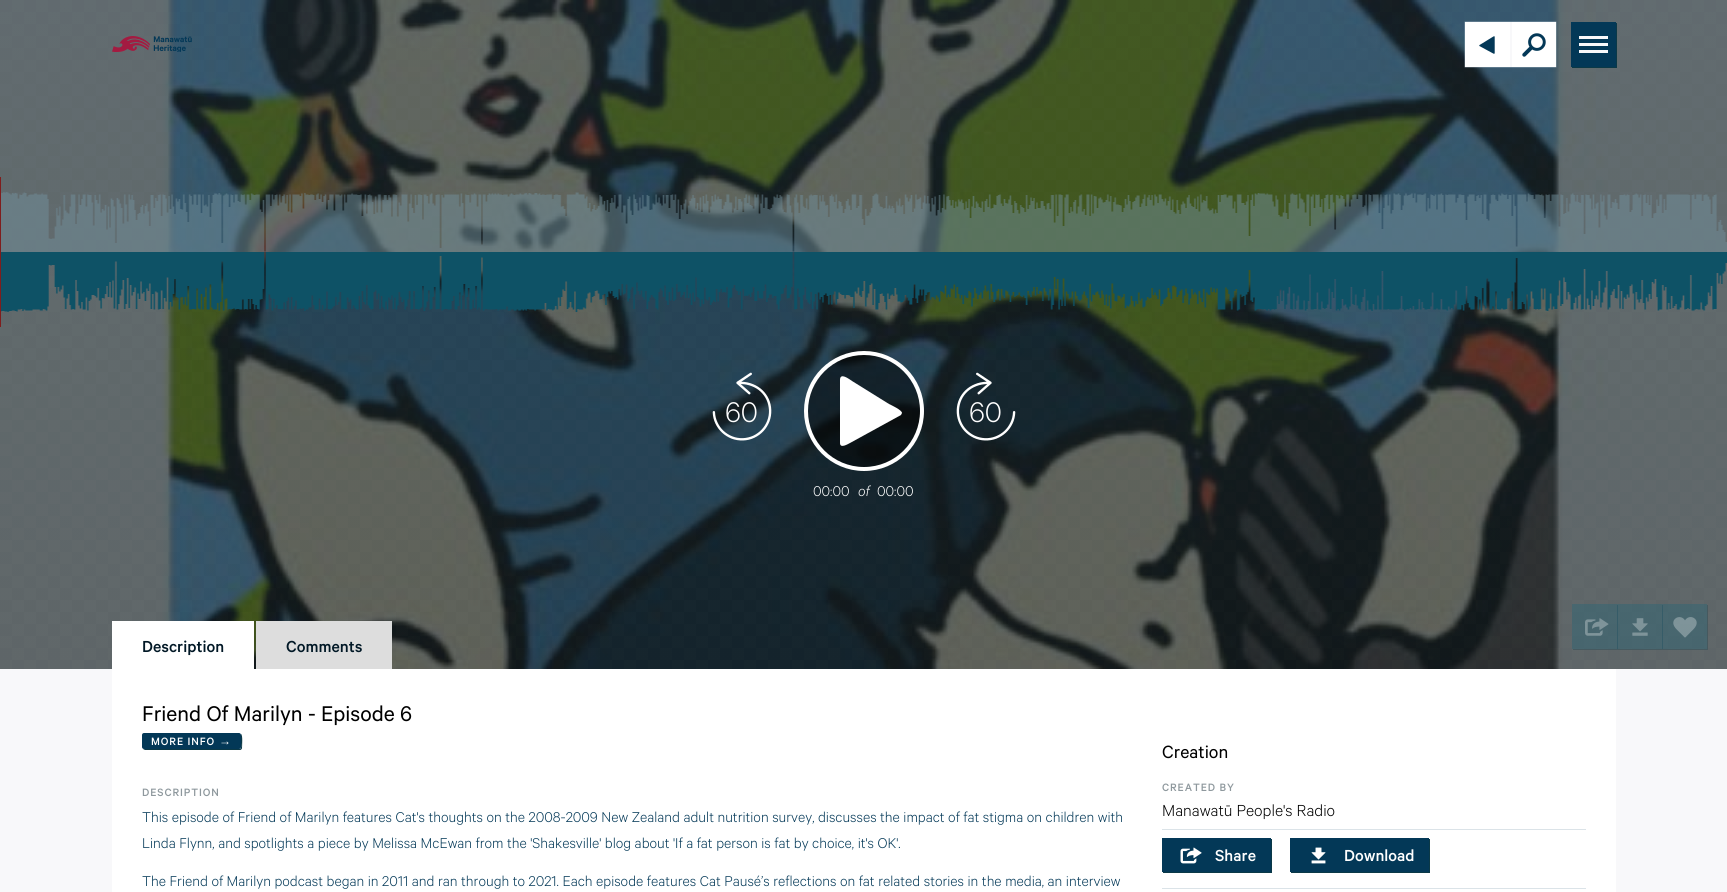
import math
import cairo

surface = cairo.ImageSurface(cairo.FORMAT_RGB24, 1727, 892)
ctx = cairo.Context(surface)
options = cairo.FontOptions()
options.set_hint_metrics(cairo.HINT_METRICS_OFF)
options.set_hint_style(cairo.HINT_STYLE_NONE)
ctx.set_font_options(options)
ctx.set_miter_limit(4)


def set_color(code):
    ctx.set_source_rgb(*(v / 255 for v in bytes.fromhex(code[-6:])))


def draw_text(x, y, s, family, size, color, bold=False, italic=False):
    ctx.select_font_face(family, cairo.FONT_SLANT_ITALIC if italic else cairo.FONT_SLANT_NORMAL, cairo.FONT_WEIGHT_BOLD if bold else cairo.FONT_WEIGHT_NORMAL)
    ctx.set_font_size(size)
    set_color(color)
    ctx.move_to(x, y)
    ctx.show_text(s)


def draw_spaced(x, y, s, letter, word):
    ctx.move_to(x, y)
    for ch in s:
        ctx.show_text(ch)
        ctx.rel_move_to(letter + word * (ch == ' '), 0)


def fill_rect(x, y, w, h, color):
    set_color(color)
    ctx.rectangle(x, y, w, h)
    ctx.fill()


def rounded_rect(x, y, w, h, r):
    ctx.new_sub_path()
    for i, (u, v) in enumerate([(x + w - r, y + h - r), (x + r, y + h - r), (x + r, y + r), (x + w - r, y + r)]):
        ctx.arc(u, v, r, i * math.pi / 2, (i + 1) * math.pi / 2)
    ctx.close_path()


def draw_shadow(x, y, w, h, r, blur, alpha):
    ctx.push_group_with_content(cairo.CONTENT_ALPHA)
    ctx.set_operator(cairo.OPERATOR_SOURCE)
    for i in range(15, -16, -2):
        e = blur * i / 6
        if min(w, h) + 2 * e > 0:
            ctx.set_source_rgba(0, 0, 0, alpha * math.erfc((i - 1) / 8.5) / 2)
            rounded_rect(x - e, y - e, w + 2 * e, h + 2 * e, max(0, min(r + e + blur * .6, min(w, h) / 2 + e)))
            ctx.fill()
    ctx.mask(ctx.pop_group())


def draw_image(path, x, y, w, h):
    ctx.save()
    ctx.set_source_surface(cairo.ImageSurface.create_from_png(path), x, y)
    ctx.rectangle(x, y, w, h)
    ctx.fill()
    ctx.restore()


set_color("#f8f8fa")
ctx.paint()
draw_image("assets/img4.png", 0, 0, 1727, 669)
draw_image("assets/img5.png", 0, 0, 1727, 669)
draw_image("assets/img1.png", 112, 36, 80, 16)
set_color("#c9dae5")
draw_shadow(1465, 22, 91, 45, 0, 0.5, 1)
fill_rect(1465, 22, 45, 45, "#ffffff")
draw_image("assets/img2.png", 1479, 36, 16, 18)
fill_rect(1510, 22, 2, 45, "#f8f8fa")
fill_rect(1512, 22, 44, 45, "#ffffff")
draw_image("assets/img3.png", 1522, 33, 24, 24)
set_color("#0b3947")
ctx.new_path()
ctx.move_to(1572, 67)
ctx.line_to(1572, 68)
ctx.line_to(1617, 68)
ctx.line_to(1617, 23)
ctx.line_to(1616, 23)
ctx.line_to(1616, 67)
ctx.close_path()
ctx.fill()
fill_rect(1571, 22, 45, 45, "#033857")
fill_rect(1579, 43, 29, 3, "#f8f8fa")
fill_rect(1579, 36, 29, 3, "#f8f8fa")
fill_rect(1579, 50, 29, 3, "#f8f8fa")
fill_rect(0, 177, 1, 150, "#7f1d1d")
draw_image("assets/img6.png", 1, 192, 1726, 60)
draw_image("assets/img7.png", 1, 252, 1726, 60)
draw_image("assets/img8.png", 712, 372, 60, 69)
draw_text(725, 422, "60", "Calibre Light", 32, "#ffffff")
ctx.set_source_rgba(0, 0, 0, 0.5)
ctx.new_path()
ctx.arc(864, 411, 58, 0, 2 * math.pi)
ctx.fill_preserve()
set_color("#ffffff")
ctx.set_line_width(4)
ctx.stroke()
ctx.new_path()
ctx.move_to(840, 443)
ctx.curve_to(840, 449, 848, 444, 850, 443)
ctx.line_to(901, 415)
ctx.line_to(902, 413)
ctx.curve_to(902, 410, 891, 405, 889, 404)
ctx.line_to(852, 381)
ctx.curve_to(849, 379, 840, 372, 840, 380)
ctx.close_path()
ctx.fill()
draw_image("assets/img9.png", 956, 372, 60, 69)
draw_text(969, 422, "60", "Calibre Light", 32, "#ffffff")
draw_text(813, 496, "00:00", "Calibre Light", 16, "#ffffff")
draw_text(858, 496, "of", "Calibre Light", 16, "#ffffff", italic=True)
draw_text(877, 496, "00:00", "Calibre Light", 16, "#ffffff")
set_color("#46595f")
ctx.new_path()
ctx.move_to(1573, 649)
ctx.line_to(1573, 650)
ctx.line_to(1618, 650)
ctx.line_to(1618, 605)
ctx.line_to(1617, 605)
ctx.line_to(1617, 649)
ctx.close_path()
ctx.fill()
ctx.set_source_rgba(0.067, 0.396, 0.49, 0.3)
ctx.rectangle(1572, 604, 45, 45)
ctx.fill()
draw_image("assets/img10.png", 1585, 618, 24, 18)
set_color("#46595f")
ctx.new_path()
ctx.move_to(1618, 649)
ctx.line_to(1618, 650)
ctx.line_to(1663, 650)
ctx.line_to(1663, 605)
ctx.line_to(1662, 605)
ctx.line_to(1662, 649)
ctx.close_path()
ctx.fill()
ctx.set_source_rgba(0.067, 0.396, 0.49, 0.3)
ctx.rectangle(1617, 604, 45, 45)
ctx.fill()
draw_image("assets/img11.png", 1632, 618, 16, 18)
set_color("#46595f")
ctx.new_path()
ctx.move_to(1663, 649)
ctx.line_to(1663, 650)
ctx.line_to(1708, 650)
ctx.line_to(1708, 605)
ctx.line_to(1707, 605)
ctx.line_to(1707, 649)
ctx.close_path()
ctx.fill()
ctx.set_source_rgba(0.067, 0.396, 0.49, 0.3)
ctx.rectangle(1662, 604, 45, 45)
ctx.fill()
draw_image("assets/img12.png", 1673, 617, 24, 21)
fill_rect(112, 621, 142, 48, "#ffffff")
draw_text(142, 652, "Description", "Calibre Medium", 18, "#011826")
fill_rect(256, 621, 136, 48, "#dddddd")
draw_text(286, 652, "Comments", "Calibre Medium", 18, "#011826")
fill_rect(112, 669, 1504, 223, "#ffffff")
draw_text(142, 721, "Friend Of Marilyn - Episode 6", "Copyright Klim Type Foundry", 24, "#000000")
set_color("#0b3947")
ctx.new_path()
ctx.move_to(143, 749)
ctx.line_to(145, 750)
ctx.line_to(240, 750)
ctx.curve_to(241, 750, 242, 749, 242, 748)
ctx.curve_to(242, 746, 243, 735, 241, 734)
ctx.line_to(241, 743)
ctx.curve_to(241, 745, 242, 749, 239, 749)
ctx.close_path()
ctx.fill()
set_color("#033857")
rounded_rect(142, 733, 99, 16, 2)
ctx.fill()
ctx.select_font_face("Calibre Medium")
ctx.set_font_size(12)
set_color("#ffffff")
draw_spaced(151, 745, "MORE INFO", 0.9, 0)
ctx.select_font_face("Liberation Sans")
draw_spaced(219, 745, "→", 0.9, 0)
ctx.select_font_face("Calibre Medium")
set_color("#8e989d")
draw_spaced(142, 796, "DESCRIPTION", 0.9, 0)
draw_text(142, 822, "This episode of Friend of Marilyn features Cat's thoughts on the 2008-2009 New Zealand adult nutrition survey, discusses the impact of fat stigma on children with", "Calibre Light", 16, "#033857")
draw_text(142, 848, "Linda Flynn, and spotlights a piece by Melissa McEwan from the 'Shakesville' blog about 'If a fat person is fat by choice, it's OK'.", "Calibre Light", 16, "#033857")
draw_text(142, 886, "The Friend of Marilyn podcast began in 2011 and ran through to 2021. Each episode features Cat Pausé’s reflections on fat related stories in the media, an interview", "Calibre Light", 16, "#033857")
fill_rect(1162, 829, 424, 1, "#dbe3e8")
draw_text(1162, 758, "Creation", "Copyright Klim Type Foundry", 20, "#000000")
ctx.select_font_face("Calibre Medium")
ctx.set_font_size(12)
set_color("#8e989d")
draw_spaced(1162, 791, "CREATED BY", 0.9, 0)
draw_text(1162, 816, "Manawatū People's Radio", "Calibre Light", 18, "#000000")
fill_rect(1162, 888, 424, 1, "#dbe3e8")
set_color("#0b3947")
ctx.new_path()
ctx.move_to(1163, 872)
ctx.line_to(1163, 873)
ctx.line_to(1272, 873)
ctx.line_to(1272, 839)
ctx.line_to(1271, 839)
ctx.line_to(1271, 872)
ctx.close_path()
ctx.fill()
fill_rect(1162, 838, 109, 34, "#033857")
draw_image("assets/img13.png", 1180, 847, 22, 17)
draw_text(1215, 861, "Share", "Calibre Medium", 18, "#ffffff")
set_color("#0b3947")
ctx.new_path()
ctx.move_to(1291, 872)
ctx.line_to(1291, 873)
ctx.line_to(1430, 873)
ctx.line_to(1430, 839)
ctx.line_to(1429, 839)
ctx.line_to(1429, 872)
ctx.close_path()
ctx.fill()
fill_rect(1290, 838, 139, 34, "#033857")
draw_image("assets/img14.png", 1311, 847, 15, 17)
draw_text(1344, 861, "Download", "Calibre Medium", 18, "#ffffff")
surface.write_to_png("output.png")
